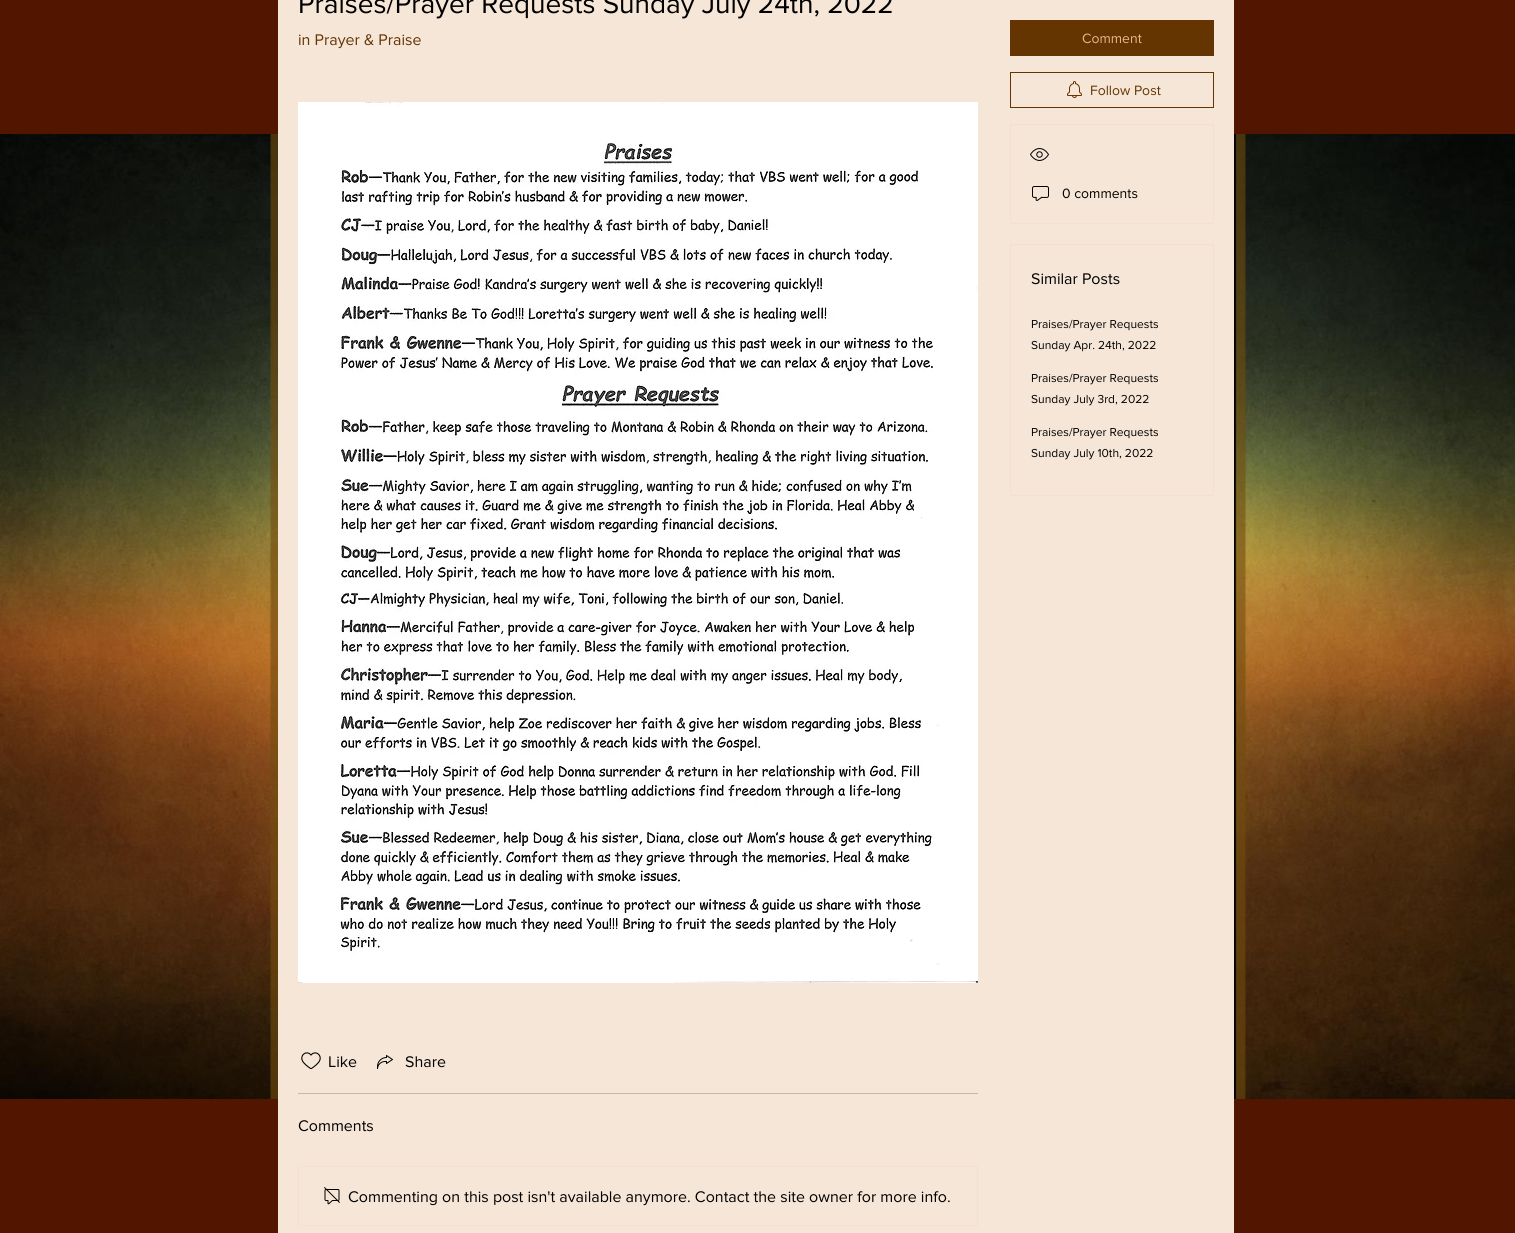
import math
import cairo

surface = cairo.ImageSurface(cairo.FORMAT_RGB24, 1515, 1233)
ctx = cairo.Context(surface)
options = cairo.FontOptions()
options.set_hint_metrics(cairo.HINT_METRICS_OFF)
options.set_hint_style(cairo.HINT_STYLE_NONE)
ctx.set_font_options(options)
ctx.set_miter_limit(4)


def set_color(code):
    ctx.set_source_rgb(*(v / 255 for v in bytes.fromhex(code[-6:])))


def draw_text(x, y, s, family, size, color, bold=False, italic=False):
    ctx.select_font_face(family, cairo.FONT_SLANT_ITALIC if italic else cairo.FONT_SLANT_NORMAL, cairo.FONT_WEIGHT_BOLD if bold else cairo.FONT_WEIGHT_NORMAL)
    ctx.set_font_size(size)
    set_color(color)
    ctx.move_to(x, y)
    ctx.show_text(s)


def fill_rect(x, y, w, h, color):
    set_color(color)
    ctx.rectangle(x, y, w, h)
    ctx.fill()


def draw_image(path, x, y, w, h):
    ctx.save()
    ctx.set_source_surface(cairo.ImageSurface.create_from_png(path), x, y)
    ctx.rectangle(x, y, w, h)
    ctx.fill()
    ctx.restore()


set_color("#521500")
ctx.paint()
draw_image("assets/img8.png", 0, 134, 1515, 965)
fill_rect(278, 0, 956, 1233, "#f5e6d7")
draw_text(298, 13, "Praises/Prayer Requests Sunday July 24th, 2022", "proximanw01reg", 28, "#000000")
draw_text(298, 45, "in Prayer & Praise", "proximanw01reg", 16, "#643401")
draw_image("assets/img1.png", 298, 102, 680, 881)
draw_image("assets/img2.png", 301, 1052, 20, 18)
draw_text(328, 1067, "Like", "proximanw01reg", 16, "#000000")
draw_image("assets/img3.png", 377, 1055, 16, 14)
draw_text(405, 1067, "Share", "proximanw01reg", 16, "#000000")
fill_rect(298, 1093, 680, 1, "#c4b8ac")
draw_text(298, 1131, "Comments", "proximanw01reg", 16, "#000000")
ctx.rectangle(298.5, 1166.5, 679, 59)
set_color("#f4e0cc")
ctx.set_line_width(1)
ctx.stroke()
draw_image("assets/img4.png", 324, 1187, 16, 18)
draw_text(348, 1202, "Commenting on this post isn't available anymore. Contact the site owner for more info.", "proximanw01reg", 16, "#000000")
fill_rect(1010, 20, 204, 36, "#643401")
draw_text(1082, 43, "Comment", "proximanw01reg", 14, "#e5b98c")
ctx.rectangle(1010.5, 72.5, 203, 35)
set_color("#643401")
ctx.stroke()
draw_image("assets/img5.png", 1067, 81, 15, 17)
draw_text(1090, 95, "Follow Post", "proximanw01reg", 14, "#643401")
ctx.rectangle(1010.5, 124.5, 203, 99)
set_color("#f4e0cc")
ctx.stroke()
draw_image("assets/img6.png", 1030, 148, 19, 13)
draw_image("assets/img7.png", 1032, 186, 17, 15)
draw_text(1062, 198, "0 comments", "proximanw01reg", 14, "#000000")
ctx.rectangle(1010.5, 244.5, 203, 251)
set_color("#f4e0cc")
ctx.stroke()
draw_text(1031, 284, "Similar Posts", "proximanw01reg", 16, "#000000")
draw_text(1031, 328, "Praises/Prayer Requests", "proximanw01reg", 12, "#000000")
draw_text(1031, 349, "Sunday Apr. 24th, 2022", "proximanw01reg", 12, "#000000")
draw_text(1031, 382, "Praises/Prayer Requests", "proximanw01reg", 12, "#000000")
draw_text(1031, 403, "Sunday July 3rd, 2022", "proximanw01reg", 12, "#000000")
draw_text(1031, 436, "Praises/Prayer Requests", "proximanw01reg", 12, "#000000")
draw_text(1031, 457, "Sunday July 10th, 2022", "proximanw01reg", 12, "#000000")
surface.write_to_png("output.png")
